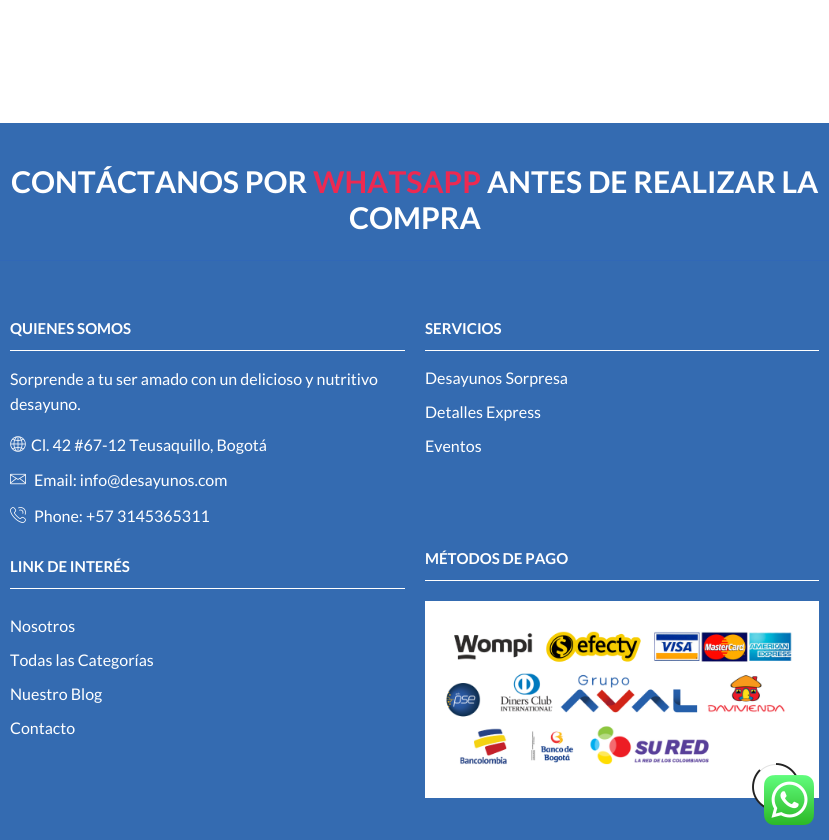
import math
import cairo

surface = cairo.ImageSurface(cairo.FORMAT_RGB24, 829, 840)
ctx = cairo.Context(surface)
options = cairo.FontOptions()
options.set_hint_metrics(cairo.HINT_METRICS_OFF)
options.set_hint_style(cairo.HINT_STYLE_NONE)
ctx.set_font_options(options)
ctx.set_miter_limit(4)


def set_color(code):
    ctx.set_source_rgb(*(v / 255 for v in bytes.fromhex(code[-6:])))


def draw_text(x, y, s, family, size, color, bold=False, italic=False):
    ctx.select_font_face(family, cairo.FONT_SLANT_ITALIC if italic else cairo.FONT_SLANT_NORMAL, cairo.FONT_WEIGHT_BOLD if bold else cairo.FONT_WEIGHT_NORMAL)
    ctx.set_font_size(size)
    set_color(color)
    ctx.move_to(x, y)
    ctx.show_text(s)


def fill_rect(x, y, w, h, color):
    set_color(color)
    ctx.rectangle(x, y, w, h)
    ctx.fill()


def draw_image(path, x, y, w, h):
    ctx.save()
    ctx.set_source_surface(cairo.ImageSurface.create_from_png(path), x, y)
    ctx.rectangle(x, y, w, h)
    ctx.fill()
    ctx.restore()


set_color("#ffffff")
ctx.paint()
fill_rect(0, 123, 829, 137, "#346bb1")
fill_rect(0, 260, 829, 1, "#3168b6")
draw_text(11, 193, "CONTÁCTANOS POR", "Lato", 30, "#ffffff", bold=True)
draw_text(313, 193, "WHATSAPP", "Lato", 30, "#ed2951", bold=True)
draw_text(487, 193, "ANTES DE REALIZAR LA", "Lato", 30, "#ffffff", bold=True)
draw_text(349, 229, "COMPRA", "Lato", 30, "#ffffff", bold=True)
fill_rect(0, 261, 829, 579, "#346bb1")
fill_rect(10, 350, 395, 1, "#ffffff")
draw_text(10, 334, "QUIENES SOMOS", "Lato", 15, "#ffffff", bold=True)
draw_text(10, 385, "Sorprende a tu ser amado con un delicioso y nutritivo", "Lato", 16, "#ffffff")
draw_text(10, 410, "desayuno.", "Lato", 16, "#ffffff")
draw_image("assets/img1.png", 10, 436, 16, 16)
draw_text(31, 451, "Cl. 42 #67-12 Teusaquillo, Bogotá", "Lato", 16, "#ffffff")
draw_image("assets/img2.png", 10, 473, 16, 12)
draw_text(34, 486, "Email: info@desayunos.com", "Lato", 16, "#ffffff")
draw_image("assets/img3.png", 10, 507, 16, 16)
draw_text(34, 522, "Phone: +57 3145365311", "Lato", 16, "#ffffff")
fill_rect(425, 350, 394, 1, "#ffffff")
draw_text(425, 334, "SERVICIOS", "Lato", 15, "#ffffff", bold=True)
draw_text(425, 384, "Desayunos Sorpresa", "Lato", 16, "#ffffff")
draw_text(425, 418, "Detalles Express", "Lato", 16, "#ffffff")
draw_text(425, 452, "Eventos", "Lato", 16, "#ffffff")
fill_rect(10, 588, 395, 1, "#ffffff")
draw_text(10, 572, "LINK DE INTERÉS", "Lato", 15, "#ffffff", bold=True)
draw_text(10, 632, "Nosotros", "Lato", 16, "#ffffff")
draw_text(10, 666, "Todas las Categorías", "Lato", 16, "#ffffff")
draw_text(10, 700, "Nuestro Blog", "Lato", 16, "#ffffff")
draw_text(10, 734, "Contacto", "Lato", 16, "#ffffff")
fill_rect(425, 580, 394, 1, "#ffffff")
draw_text(425, 564, "MÉTODOS DE PAGO", "Lato", 15, "#ffffff", bold=True)
draw_image("assets/img4.png", 425, 601, 394, 197)
ctx.arc(776, 787, 22.5, 0, 2 * math.pi)
ctx.fill_preserve()
set_color("#e1e1e1")
ctx.set_line_width(1)
ctx.stroke()
ctx.new_path()
ctx.move_to(776, 764)
ctx.curve_to(788.5, 764, 799, 774.5, 799, 787)
ctx.curve_to(799, 799.5, 788.5, 810, 776, 810)
ctx.curve_to(763.5, 810, 753, 799.5, 753, 787)
ctx.curve_to(753, 780.5, 755.5, 774.5, 760, 770)
set_color("#222222")
ctx.set_line_width(1.9)
ctx.stroke()
draw_image("assets/img5.png", 764, 775, 50, 50)
surface.write_to_png("output.png")
